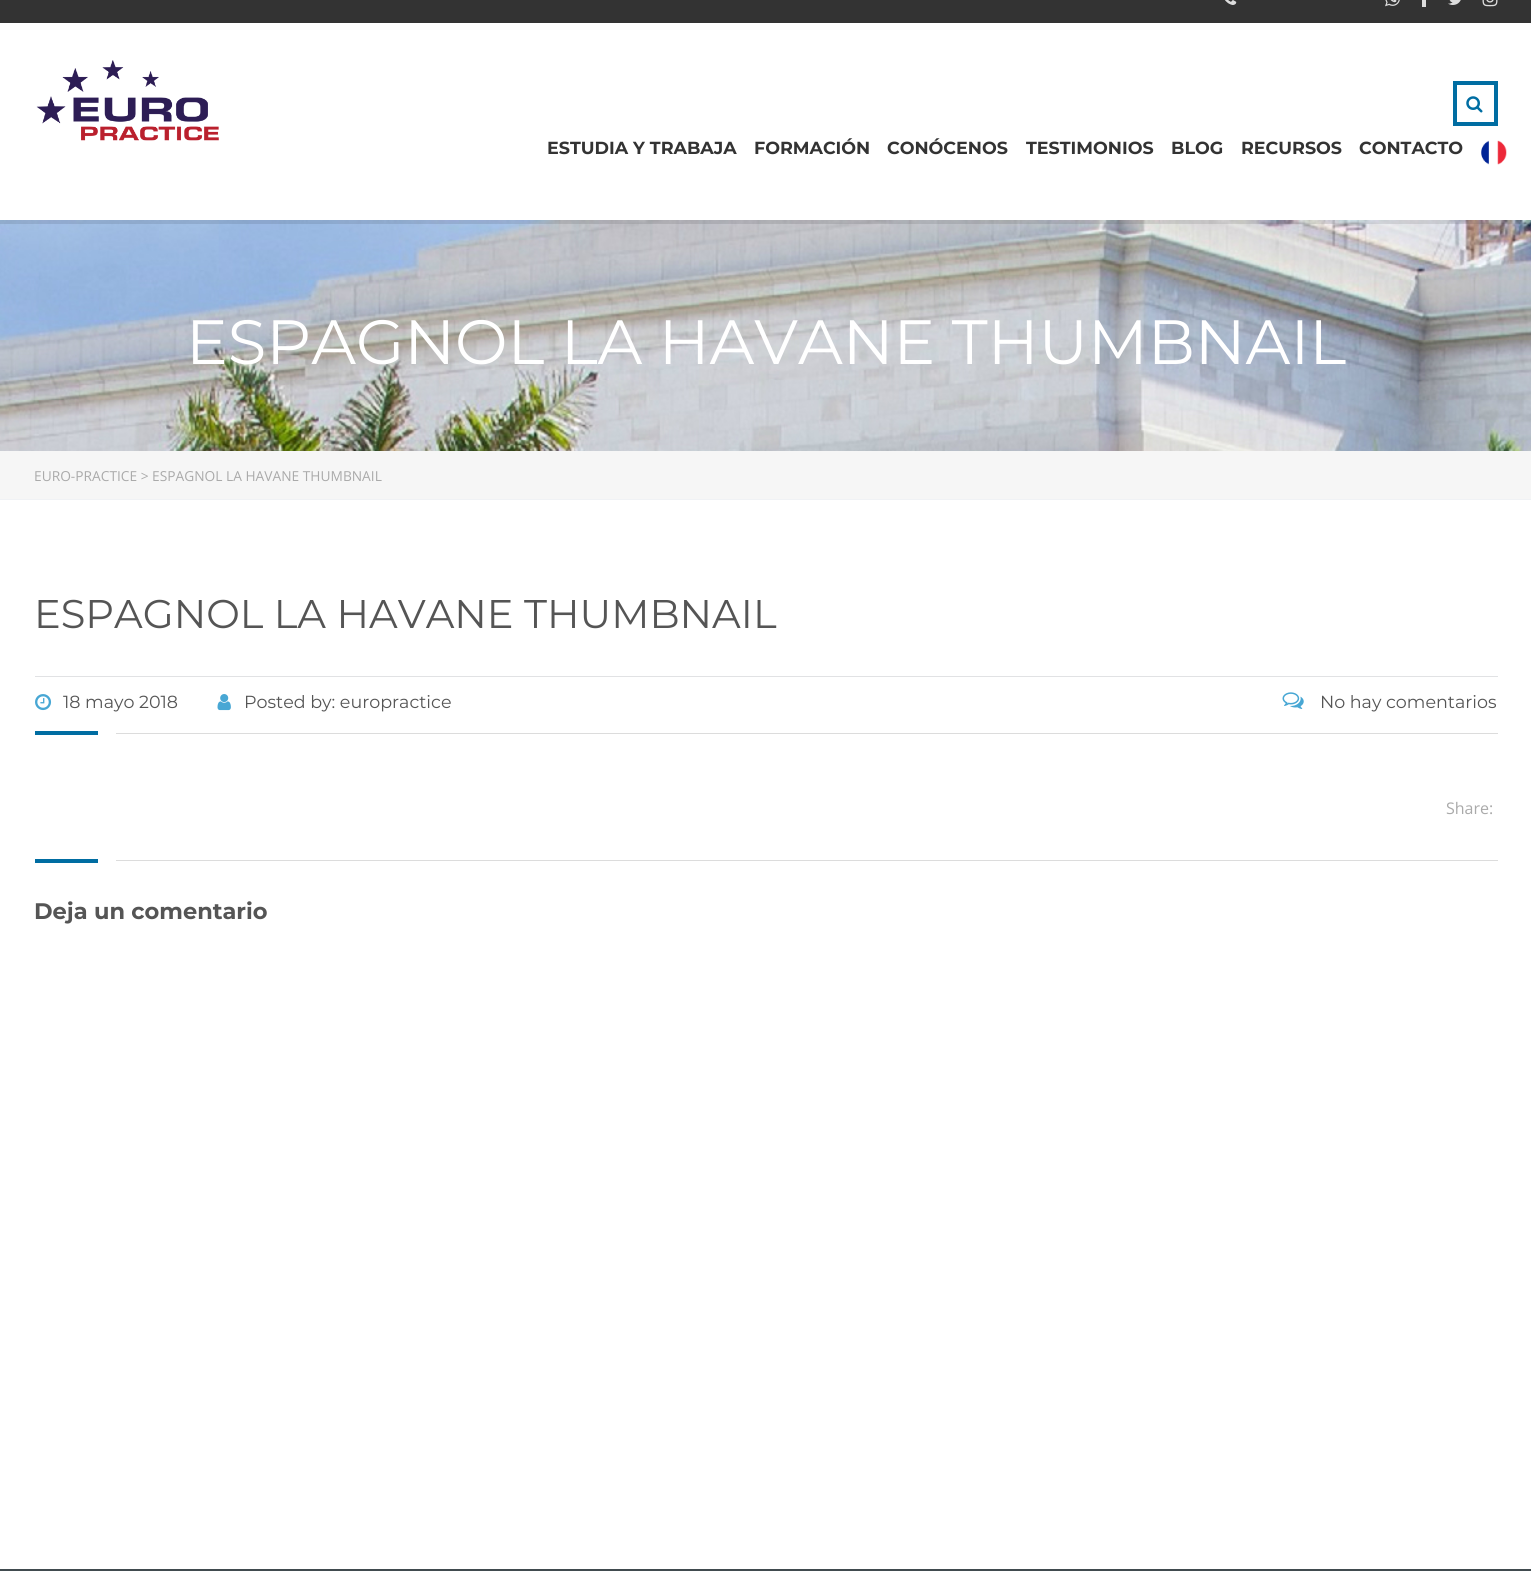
import math
import cairo

surface = cairo.ImageSurface(cairo.FORMAT_RGB24, 1531, 1571)
ctx = cairo.Context(surface)
options = cairo.FontOptions()
options.set_hint_metrics(cairo.HINT_METRICS_OFF)
options.set_hint_style(cairo.HINT_STYLE_NONE)
ctx.set_font_options(options)
ctx.set_miter_limit(4)


def set_color(code):
    ctx.set_source_rgb(*(v / 255 for v in bytes.fromhex(code[-6:])))


def draw_text(x, y, s, family, size, color, bold=False, italic=False):
    ctx.select_font_face(family, cairo.FONT_SLANT_ITALIC if italic else cairo.FONT_SLANT_NORMAL, cairo.FONT_WEIGHT_BOLD if bold else cairo.FONT_WEIGHT_NORMAL)
    ctx.set_font_size(size)
    set_color(color)
    ctx.move_to(x, y)
    ctx.show_text(s)


def fill_rect(x, y, w, h, color):
    set_color(color)
    ctx.rectangle(x, y, w, h)
    ctx.fill()


def draw_image(path, x, y, w, h):
    ctx.save()
    ctx.set_source_surface(cairo.ImageSurface.create_from_png(path), x, y)
    ctx.rectangle(x, y, w, h)
    ctx.fill()
    ctx.restore()


set_color("#414b4f")
ctx.paint()
fill_rect(0, 23, 1531, 1546, "#ffffff")
fill_rect(0, 0, 1531, 23, "#333333")
draw_image("assets/img1.png", 1225, 0, 12, 5)
draw_image("assets/img2.png", 1385, 0, 15, 7)
fill_rect(1422, 0, 4, 7, "#dddddd")
draw_image("assets/img3.png", 1448, 0, 13, 5)
draw_image("assets/img4.png", 1482, 0, 16, 7)
draw_image("assets/img5.png", 36, 60, 183, 81)
ctx.rectangle(1455, 83, 41, 41)
set_color("#006da2")
ctx.set_line_width(4)
ctx.stroke()
draw_image("assets/img6.png", 1466, 96, 17, 17)
draw_text(547, 154, "ESTUDIA Y TRABAJA", "Montserrat", 17.5, "#333333", bold=True)
draw_text(754, 154, "FORMACIÓN", "Montserrat", 17.5, "#333333", bold=True)
draw_text(887, 154, "CONÓCENOS", "Montserrat", 17.5, "#333333", bold=True)
draw_text(1026, 154, "TESTIMONIOS", "Montserrat", 17.5, "#333333", bold=True)
draw_text(1171, 154, "BLOG", "Montserrat", 17.5, "#333333", bold=True)
draw_text(1241, 154, "RECURSOS", "Montserrat", 17.5, "#333333", bold=True)
draw_text(1359, 154, "CONTACTO", "Montserrat", 17.5, "#333333", bold=True)
draw_image("assets/img7.png", 1481, 140, 26, 25)
draw_image("assets/img8.png", 0, 220, 1531, 231)
ctx.set_source_rgba(0, 0, 0, 0.1)
ctx.rectangle(0, 220, 1531, 4)
ctx.fill()
draw_text(186, 364, "ESPAGNOL LA HAVANE THUMBNAIL", "Montserrat", 62.5, "#ffffff")
fill_rect(0, 451, 1531, 48, "#f6f6f6")
fill_rect(0, 499, 1531, 1, "#f0f2f5")
draw_text(34, 481, "EURO-PRACTICE > ESPAGNOL LA HAVANE THUMBNAIL", "Open Sans", 13.75, "#aaaaaa")
fill_rect(35, 676, 1463, 1, "#e1e2e4")
draw_text(34, 628, "ESPAGNOL LA HAVANE THUMBNAIL", "Montserrat", 40, "#555555")
draw_image("assets/img9.png", 35, 694, 17, 17)
draw_text(63, 708, "18 mayo 2018", "Montserrat", 17.5, "#555555")
draw_image("assets/img10.png", 217, 694, 14, 17)
draw_text(244, 708, "Posted by: europractice", "Montserrat", 17.5, "#555555")
draw_image("assets/img11.png", 1282, 692, 22, 17)
draw_text(1320, 708, "No hay comentarios", "Montserrat", 17.5, "#555555")
fill_rect(35, 731, 63, 4, "#006da2")
fill_rect(116, 733, 1382, 1, "#dcdcdc")
draw_text(1446, 814, "Share:", "Open Sans", 16, "#aaaaaa")
fill_rect(35, 859, 63, 4, "#006da2")
fill_rect(116, 860, 1382, 1, "#dcdcdc")
draw_text(34, 919, "Deja un comentario", "Montserrat", 22.5, "#555555", bold=True)
surface.write_to_png("output.png")
